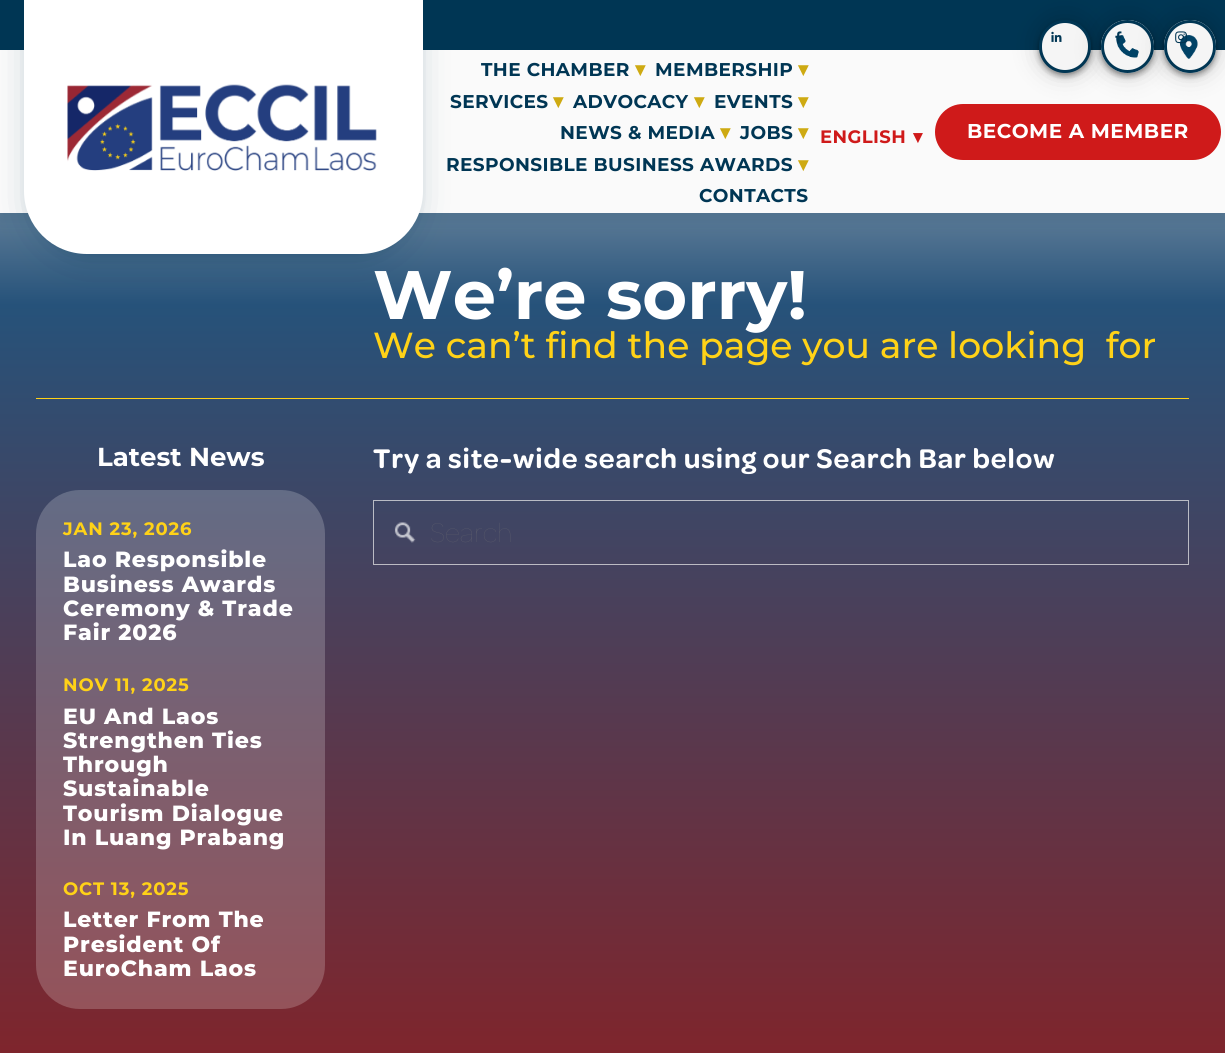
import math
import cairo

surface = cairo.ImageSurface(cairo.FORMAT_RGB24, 1225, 1053)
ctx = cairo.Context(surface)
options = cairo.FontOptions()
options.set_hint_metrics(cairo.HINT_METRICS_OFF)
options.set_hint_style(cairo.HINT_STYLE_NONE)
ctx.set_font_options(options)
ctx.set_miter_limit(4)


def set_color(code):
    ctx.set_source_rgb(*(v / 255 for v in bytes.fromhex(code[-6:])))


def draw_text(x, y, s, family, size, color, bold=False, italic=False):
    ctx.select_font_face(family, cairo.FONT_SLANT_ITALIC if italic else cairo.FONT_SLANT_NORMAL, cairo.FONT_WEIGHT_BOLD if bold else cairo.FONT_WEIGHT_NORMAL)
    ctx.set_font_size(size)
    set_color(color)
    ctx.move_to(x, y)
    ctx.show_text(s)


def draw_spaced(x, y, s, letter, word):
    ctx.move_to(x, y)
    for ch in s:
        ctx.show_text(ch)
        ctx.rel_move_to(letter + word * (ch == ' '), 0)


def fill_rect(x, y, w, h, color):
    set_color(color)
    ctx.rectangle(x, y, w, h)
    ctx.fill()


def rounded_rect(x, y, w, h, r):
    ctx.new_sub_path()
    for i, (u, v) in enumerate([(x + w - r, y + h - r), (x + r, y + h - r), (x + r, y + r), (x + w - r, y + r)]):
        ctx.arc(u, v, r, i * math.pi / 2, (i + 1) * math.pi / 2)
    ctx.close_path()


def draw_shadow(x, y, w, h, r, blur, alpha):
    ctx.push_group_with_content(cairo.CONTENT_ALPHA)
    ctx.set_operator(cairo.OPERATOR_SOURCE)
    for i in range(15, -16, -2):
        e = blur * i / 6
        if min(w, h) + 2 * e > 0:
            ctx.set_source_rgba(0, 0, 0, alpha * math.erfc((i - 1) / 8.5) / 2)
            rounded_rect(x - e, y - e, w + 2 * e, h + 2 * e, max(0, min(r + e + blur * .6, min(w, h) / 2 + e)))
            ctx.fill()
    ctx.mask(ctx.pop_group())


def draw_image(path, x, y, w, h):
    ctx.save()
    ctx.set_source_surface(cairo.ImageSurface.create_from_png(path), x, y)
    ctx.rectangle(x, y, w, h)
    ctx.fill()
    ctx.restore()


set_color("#ffffff")
ctx.paint()
gradient = cairo.LinearGradient(613, 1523, 613, 0)
gradient.add_color_stop_rgba(0.2, 0.573, 0.106, 0.106, 1)
gradient.add_color_stop_rgba(0.8, 0.149, 0.322, 0.478, 1)
gradient.add_color_stop_rgba(1, 0.851, 0.851, 0.851, 1)
ctx.set_source(gradient)
ctx.rectangle(0, 213, 1225, 840)
ctx.fill()
fill_rect(0, 0, 1225, 50, "#003654")
set_color("#003654")
draw_shadow(0, 56, 1225, 163, 0, 7.5, 0.15)
fill_rect(0, 50, 1225, 163, "#fafafa")
set_color("#003654")
draw_shadow(43, -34, 361, 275, 44, 9.5, 1)
draw_shadow(36, -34, 374, 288, 50, 19, 0.3)
set_color("#ffffff")
ctx.new_path()
ctx.move_to(24, -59)
ctx.line_to(423, -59)
ctx.line_to(423, 191)
ctx.curve_to(423, 226, 395, 254, 360, 254)
ctx.line_to(87, 254)
ctx.curve_to(52, 254, 24, 226, 24, 191)
ctx.close_path()
ctx.fill()
draw_image("assets/img1.png", 67, 84, 310, 87)
ctx.select_font_face("Montserrat", cairo.FONT_SLANT_NORMAL, cairo.FONT_WEIGHT_BOLD)
ctx.set_font_size(18.5)
set_color("#003654")
draw_spaced(481, 76, "THE CHAMBER", 0.4, 0)
ctx.select_font_face("DejaVu Sans", cairo.FONT_SLANT_NORMAL, cairo.FONT_WEIGHT_BOLD)
ctx.set_font_size(20)
set_color("#ceaa12")
draw_spaced(635, 76, "▾", 0.4, 0)
ctx.select_font_face("Montserrat", cairo.FONT_SLANT_NORMAL, cairo.FONT_WEIGHT_BOLD)
ctx.set_font_size(18.5)
set_color("#003654")
draw_spaced(655, 76, "MEMBERSHIP", 0.4, 0)
ctx.select_font_face("DejaVu Sans", cairo.FONT_SLANT_NORMAL, cairo.FONT_WEIGHT_BOLD)
ctx.set_font_size(20)
set_color("#ceaa12")
draw_spaced(798, 76, "▾", 0.4, 0)
ctx.select_font_face("Montserrat", cairo.FONT_SLANT_NORMAL, cairo.FONT_WEIGHT_BOLD)
ctx.set_font_size(18.5)
set_color("#003654")
draw_spaced(450, 108, "SERVICES", 0.4, 0)
ctx.select_font_face("DejaVu Sans", cairo.FONT_SLANT_NORMAL, cairo.FONT_WEIGHT_BOLD)
ctx.set_font_size(20)
set_color("#ceaa12")
draw_spaced(553, 108, "▾", 0.4, 0)
ctx.select_font_face("Montserrat", cairo.FONT_SLANT_NORMAL, cairo.FONT_WEIGHT_BOLD)
ctx.set_font_size(18.5)
set_color("#003654")
draw_spaced(573, 108, "ADVOCACY", 0.4, 0)
ctx.select_font_face("DejaVu Sans", cairo.FONT_SLANT_NORMAL, cairo.FONT_WEIGHT_BOLD)
ctx.set_font_size(20)
set_color("#ceaa12")
draw_spaced(694, 108, "▾", 0.4, 0)
ctx.select_font_face("Montserrat", cairo.FONT_SLANT_NORMAL, cairo.FONT_WEIGHT_BOLD)
ctx.set_font_size(18.5)
set_color("#003654")
draw_spaced(714, 108, "EVENTS", 0.4, 0)
ctx.select_font_face("DejaVu Sans", cairo.FONT_SLANT_NORMAL, cairo.FONT_WEIGHT_BOLD)
ctx.set_font_size(20)
set_color("#ceaa12")
draw_spaced(798, 108, "▾", 0.4, 0)
ctx.select_font_face("Montserrat", cairo.FONT_SLANT_NORMAL, cairo.FONT_WEIGHT_BOLD)
ctx.set_font_size(18.5)
set_color("#003654")
draw_spaced(560, 139, "NEWS & MEDIA", 0.4, 0)
ctx.select_font_face("DejaVu Sans", cairo.FONT_SLANT_NORMAL, cairo.FONT_WEIGHT_BOLD)
ctx.set_font_size(20)
set_color("#ceaa12")
draw_spaced(720, 139, "▾", 0.4, 0)
ctx.select_font_face("Montserrat", cairo.FONT_SLANT_NORMAL, cairo.FONT_WEIGHT_BOLD)
ctx.set_font_size(18.5)
set_color("#003654")
draw_spaced(740, 139, "JOBS", 0.4, 0)
ctx.select_font_face("DejaVu Sans", cairo.FONT_SLANT_NORMAL, cairo.FONT_WEIGHT_BOLD)
ctx.set_font_size(20)
set_color("#ceaa12")
draw_spaced(798, 139, "▾", 0.4, 0)
ctx.select_font_face("Montserrat", cairo.FONT_SLANT_NORMAL, cairo.FONT_WEIGHT_BOLD)
ctx.set_font_size(18.5)
set_color("#003654")
draw_spaced(446, 171, "RESPONSIBLE BUSINESS AWARDS", 0.4, 0)
ctx.select_font_face("DejaVu Sans", cairo.FONT_SLANT_NORMAL, cairo.FONT_WEIGHT_BOLD)
ctx.set_font_size(20)
set_color("#ceaa12")
draw_spaced(798, 171, "▾", 0.4, 0)
ctx.select_font_face("Montserrat", cairo.FONT_SLANT_NORMAL, cairo.FONT_WEIGHT_BOLD)
ctx.set_font_size(18.5)
set_color("#003654")
draw_spaced(699, 202, "CONTACTS", 0.4, 0)
set_color("#cf1a1a")
rounded_rect(936.5, 105.5, 283, 53, 26.5)
ctx.fill_preserve()
ctx.set_line_width(3)
ctx.stroke()
set_color("#000000")
draw_shadow(1039, 20, 52, 53, 26, 12.5, 0.2)
draw_shadow(1039, 24, 52, 52, 26, 3, 0.4)
set_color("#f5f5f5")
rounded_rect(1040.5, 21.5, 49, 50, 24.5)
ctx.fill_preserve()
set_color("#003654")
ctx.stroke()
draw_image("assets/img2.png", 1051, 31, 11, 11)
set_color("#000000")
draw_shadow(1101, 20, 53, 53, 26.5, 12.5, 0.2)
draw_shadow(1101, 24, 53, 52, 26, 3, 0.4)
set_color("#f5f5f5")
ctx.arc(1127.5, 46.5, 26.5, 0, 2 * math.pi)
ctx.fill()
draw_image("assets/img3.png", 1116, 35, 23, 23)
ctx.arc(1127.5, 46.5, 25, 0, 2 * math.pi)
set_color("#003654")
ctx.stroke()
draw_image("assets/img4.png", 1115, 31, 7, 12)
set_color("#000000")
draw_shadow(1164, 20, 52, 53, 26, 12.5, 0.2)
draw_shadow(1164, 24, 52, 52, 26, 3, 0.4)
set_color("#f5f5f5")
rounded_rect(1164, 20, 52, 53, 26)
ctx.fill()
draw_image("assets/img5.png", 1178, 34, 20, 25)
rounded_rect(1165.5, 21.5, 49, 50, 24.5)
set_color("#003654")
ctx.stroke()
draw_image("assets/img6.png", 1175, 31, 12, 13)
ctx.set_font_size(18)
set_color("#cf1a1a")
draw_spaced(820, 143, "ENGLISH", 0.4, 0)
ctx.select_font_face("DejaVu Sans", cairo.FONT_SLANT_NORMAL, cairo.FONT_WEIGHT_BOLD)
ctx.set_font_size(18.5)
draw_spaced(913, 143, "▾", 0.4, 0)
ctx.select_font_face("Montserrat", cairo.FONT_SLANT_NORMAL, cairo.FONT_WEIGHT_BOLD)
ctx.set_font_size(20)
set_color("#ffffff")
draw_spaced(967, 138, "BECOME A MEMBER", 0.5, 0)
draw_text(373, 319, "We’re sorry!", "Montserrat", 68.5, "#ffffff", bold=True)
draw_text(373, 358, "We can’t find the page you are looking  for", "Montserrat Medium", 36.2, "#ffd217")
fill_rect(36, 398, 1153, 1, "#ffd217")
draw_text(97, 466, "Latest News", "Montserrat", 26, "#ffffff", bold=True)
ctx.select_font_face("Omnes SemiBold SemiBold")
ctx.set_font_size(28.8)
draw_spaced(373, 468, "Try a site-wide search using our Search Bar below", 0.85, 0)
ctx.set_source_rgba(1, 1, 1, 0.2)
rounded_rect(36, 490, 289, 519, 44)
ctx.fill()
ctx.select_font_face("Montserrat", cairo.FONT_SLANT_NORMAL, cairo.FONT_WEIGHT_BOLD)
ctx.set_font_size(18)
set_color("#ffd217")
draw_spaced(63, 535, "JAN 23, 2026", 0.85, 0)
ctx.select_font_face("Montserrat ExtraBold")
ctx.set_font_size(22)
set_color("#ffffff")
draw_spaced(63, 567, "Lao Responsible", 0.85, 0)
draw_spaced(63, 592, "Business Awards", 0.85, 0)
draw_spaced(63, 616, "Ceremony & Trade", 0.85, 0)
draw_spaced(63, 640, "Fair 2026", 0.85, 0)
ctx.select_font_face("Montserrat", cairo.FONT_SLANT_NORMAL, cairo.FONT_WEIGHT_BOLD)
ctx.set_font_size(18)
set_color("#ffd217")
draw_spaced(63, 691, "NOV 11, 2025", 0.85, 0)
ctx.select_font_face("Montserrat ExtraBold")
ctx.set_font_size(22)
set_color("#ffffff")
draw_spaced(63, 724, "EU And Laos", 0.85, 0)
draw_spaced(63, 748, "Strengthen Ties", 0.85, 0)
draw_spaced(63, 772, "Through", 0.85, 0)
draw_spaced(63, 796, "Sustainable", 0.85, 0)
draw_spaced(63, 821, "Tourism Dialogue", 0.85, 0)
draw_spaced(63, 845, "In Luang Prabang", 0.85, 0)
ctx.select_font_face("Montserrat", cairo.FONT_SLANT_NORMAL, cairo.FONT_WEIGHT_BOLD)
ctx.set_font_size(18)
set_color("#ffd217")
draw_spaced(63, 895, "OCT 13, 2025", 0.85, 0)
ctx.select_font_face("Montserrat ExtraBold")
ctx.set_font_size(22)
set_color("#ffffff")
draw_spaced(63, 927, "Letter From The", 0.85, 0)
draw_spaced(63, 952, "President Of", 0.85, 0)
draw_spaced(63, 976, "EuroCham Laos", 0.85, 0)
draw_image("assets/img7.png", 394, 522, 22, 21)
ctx.rectangle(373.5, 500.5, 815, 64)
ctx.set_source_rgba(0.933, 0.933, 0.933, 0.7)
ctx.set_line_width(1)
ctx.stroke()
draw_text(430, 542, "Search", "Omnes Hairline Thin", 28.8, "#66666f")
surface.write_to_png("output.png")
